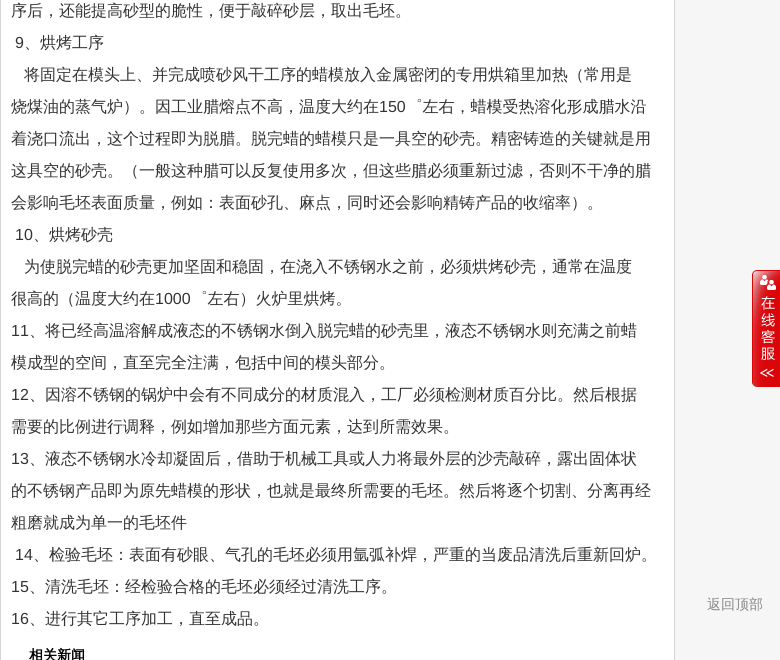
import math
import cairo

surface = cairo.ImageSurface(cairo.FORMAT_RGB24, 780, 660)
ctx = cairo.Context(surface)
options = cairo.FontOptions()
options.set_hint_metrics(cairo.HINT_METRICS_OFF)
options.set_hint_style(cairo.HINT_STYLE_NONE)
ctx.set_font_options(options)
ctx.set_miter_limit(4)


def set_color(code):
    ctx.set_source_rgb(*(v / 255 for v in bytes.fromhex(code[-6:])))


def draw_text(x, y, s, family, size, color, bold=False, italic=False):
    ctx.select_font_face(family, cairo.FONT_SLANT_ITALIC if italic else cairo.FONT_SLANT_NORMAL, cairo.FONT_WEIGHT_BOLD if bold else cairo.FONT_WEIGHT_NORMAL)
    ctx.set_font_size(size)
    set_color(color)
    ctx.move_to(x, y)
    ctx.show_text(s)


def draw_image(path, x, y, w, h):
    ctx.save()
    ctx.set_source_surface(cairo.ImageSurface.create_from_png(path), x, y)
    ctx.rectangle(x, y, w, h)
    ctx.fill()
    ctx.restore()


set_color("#f6f6f6")
ctx.paint()
set_color("#ffffff")
ctx.rectangle(0.5, -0.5, 674, 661)
ctx.fill_preserve()
set_color("#d5d5d5")
ctx.set_line_width(1)
ctx.stroke()
draw_text(11, 16, "序后，还能提高砂型的脆性，便于敲碎砂层，取出毛坯。", "WenQuanYi Zen Hei Medium", 16, "#333333")
draw_text(15, 48, "9", "Liberation Sans", 16, "#333333")
draw_text(24, 48, "、烘烤工序", "WenQuanYi Zen Hei Medium", 16, "#333333")
draw_text(24, 80, "将固定在模头上、并完成喷砂风干工序的蜡模放入金属密闭的专用烘箱里加热（常用是", "WenQuanYi Zen Hei Medium", 16, "#333333")
draw_text(11, 112, "烧煤油的蒸气炉）。因工业腊熔点不高，温度大约在", "WenQuanYi Zen Hei Medium", 16, "#333333")
draw_text(379, 112, "150", "Liberation Sans", 16, "#333333")
draw_text(406, 112, "゜左右，蜡模受热溶化形成腊水沿", "WenQuanYi Zen Hei Medium", 16, "#333333")
draw_text(11, 144, "着浇口流出，这个过程即为脱腊。脱完蜡的蜡模只是一具空的砂壳。精密铸造的关键就是用", "WenQuanYi Zen Hei Medium", 16, "#333333")
draw_text(11, 176, "这具空的砂壳。（一般这种腊可以反复使用多次，但这些腊必须重新过滤，否则不干净的腊", "WenQuanYi Zen Hei Medium", 16, "#333333")
draw_text(11, 208, "会影响毛坯表面质量，例如：表面砂孔、麻点，同时还会影响精铸产品的收缩率）。", "WenQuanYi Zen Hei Medium", 16, "#333333")
draw_text(15, 240, "10", "Liberation Sans", 16, "#333333")
draw_text(33, 240, "、烘烤砂壳", "WenQuanYi Zen Hei Medium", 16, "#333333")
draw_text(24, 272, "为使脱完蜡的砂壳更加坚固和稳固，在浇入不锈钢水之前，必须烘烤砂壳，通常在温度", "WenQuanYi Zen Hei Medium", 16, "#333333")
draw_text(11, 304, "很高的（温度大约在", "WenQuanYi Zen Hei Medium", 16, "#333333")
draw_text(155, 304, "1000", "Liberation Sans", 16, "#333333")
draw_text(191, 304, "゜左右）火炉里烘烤。", "WenQuanYi Zen Hei Medium", 16, "#333333")
draw_text(11, 336, "11", "Liberation Sans", 16, "#333333")
draw_text(29, 336, "、将已经高温溶解成液态的不锈钢水倒入脱完蜡的砂壳里，液态不锈钢水则充满之前蜡", "WenQuanYi Zen Hei Medium", 16, "#333333")
draw_text(11, 368, "模成型的空间，直至完全注满，包括中间的模头部分。", "WenQuanYi Zen Hei Medium", 16, "#333333")
draw_text(11, 400, "12", "Liberation Sans", 16, "#333333")
draw_text(29, 400, "、因溶不锈钢的锅炉中会有不同成分的材质混入，工厂必须检测材质百分比。然后根据", "WenQuanYi Zen Hei Medium", 16, "#333333")
draw_text(11, 432, "需要的比例进行调释，例如增加那些方面元素，达到所需效果。", "WenQuanYi Zen Hei Medium", 16, "#333333")
draw_text(11, 464, "13", "Liberation Sans", 16, "#333333")
draw_text(29, 464, "、液态不锈钢水冷却凝固后，借助于机械工具或人力将最外层的沙壳敲碎，露出固体状", "WenQuanYi Zen Hei Medium", 16, "#333333")
draw_text(11, 496, "的不锈钢产品即为原先蜡模的形状，也就是最终所需要的毛坯。然后将逐个切割、分离再经", "WenQuanYi Zen Hei Medium", 16, "#333333")
draw_text(11, 528, "粗磨就成为单一的毛坯件", "WenQuanYi Zen Hei Medium", 16, "#333333")
draw_text(15, 560, "14", "Liberation Sans", 16, "#333333")
draw_text(33, 560, "、检验毛坯：表面有砂眼、气孔的毛坯必须用氩弧补焊，严重的当废品清洗后重新回炉。", "WenQuanYi Zen Hei Medium", 16, "#333333")
draw_text(11, 592, "15", "Liberation Sans", 16, "#333333")
draw_text(29, 592, "、清洗毛坯：经检验合格的毛坯必须经过清洗工序。", "WenQuanYi Zen Hei Medium", 16, "#333333")
draw_text(11, 624, "16", "Liberation Sans", 16, "#333333")
draw_text(29, 624, "、进行其它工序加工，直至成品。", "WenQuanYi Zen Hei Medium", 16, "#333333")
draw_text(29, 660, "相关新闻", "WenQuanYi Zen Hei", 14, "#000000", bold=True)
draw_image("assets/img1.png", 752, 270, 28, 117)
draw_text(707, 609, "返回顶部", "WenQuanYi Zen Hei Medium", 14, "#888888")
surface.write_to_png("output.png")
